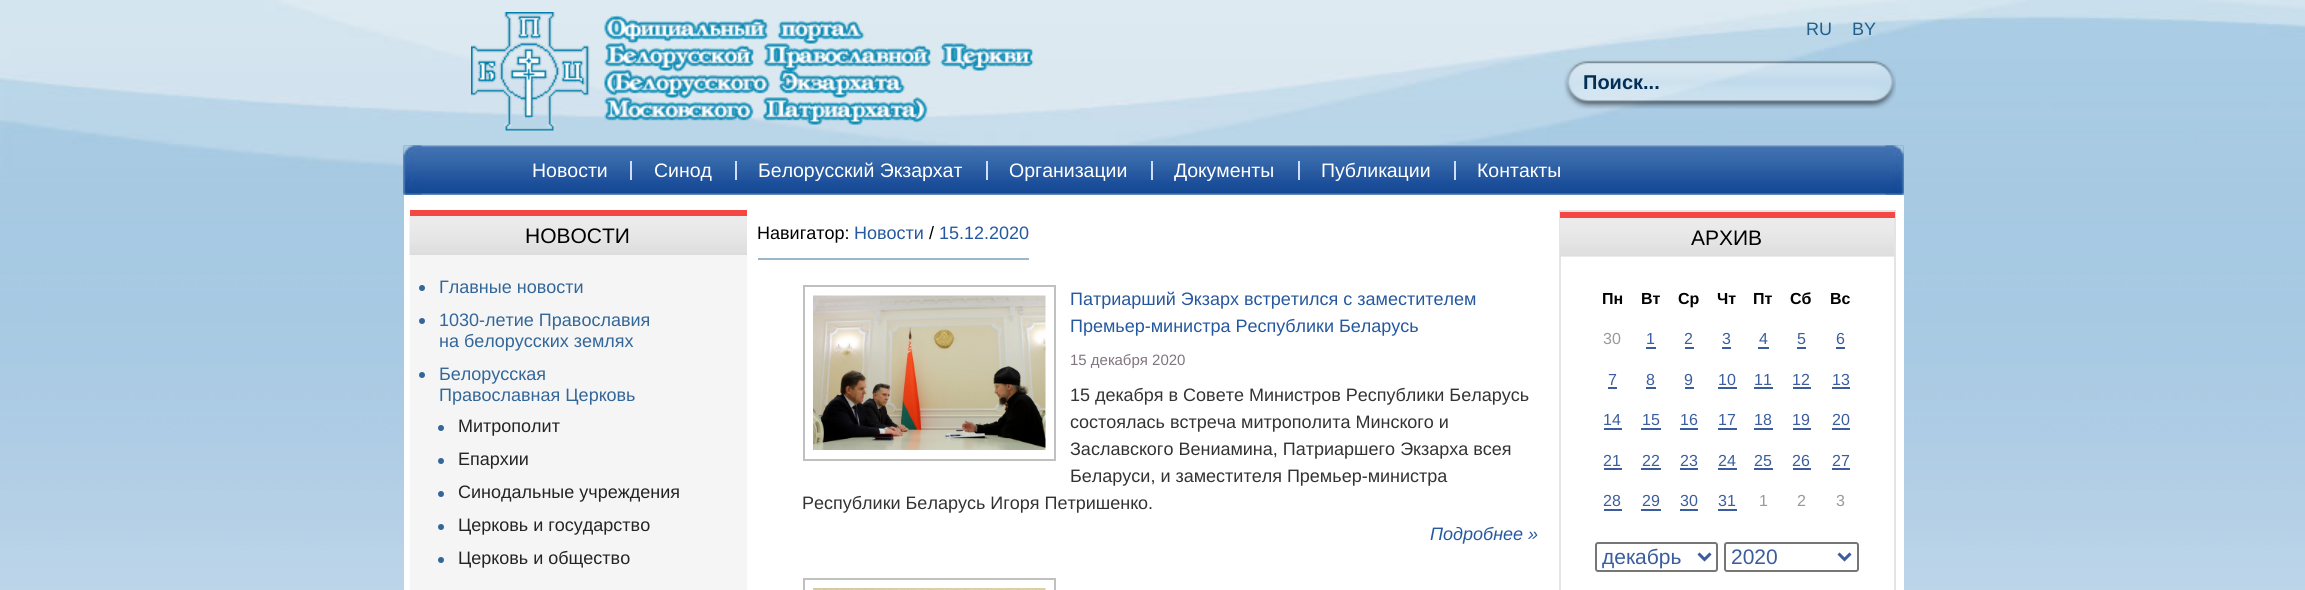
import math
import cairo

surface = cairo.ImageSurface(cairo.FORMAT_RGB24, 2305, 590)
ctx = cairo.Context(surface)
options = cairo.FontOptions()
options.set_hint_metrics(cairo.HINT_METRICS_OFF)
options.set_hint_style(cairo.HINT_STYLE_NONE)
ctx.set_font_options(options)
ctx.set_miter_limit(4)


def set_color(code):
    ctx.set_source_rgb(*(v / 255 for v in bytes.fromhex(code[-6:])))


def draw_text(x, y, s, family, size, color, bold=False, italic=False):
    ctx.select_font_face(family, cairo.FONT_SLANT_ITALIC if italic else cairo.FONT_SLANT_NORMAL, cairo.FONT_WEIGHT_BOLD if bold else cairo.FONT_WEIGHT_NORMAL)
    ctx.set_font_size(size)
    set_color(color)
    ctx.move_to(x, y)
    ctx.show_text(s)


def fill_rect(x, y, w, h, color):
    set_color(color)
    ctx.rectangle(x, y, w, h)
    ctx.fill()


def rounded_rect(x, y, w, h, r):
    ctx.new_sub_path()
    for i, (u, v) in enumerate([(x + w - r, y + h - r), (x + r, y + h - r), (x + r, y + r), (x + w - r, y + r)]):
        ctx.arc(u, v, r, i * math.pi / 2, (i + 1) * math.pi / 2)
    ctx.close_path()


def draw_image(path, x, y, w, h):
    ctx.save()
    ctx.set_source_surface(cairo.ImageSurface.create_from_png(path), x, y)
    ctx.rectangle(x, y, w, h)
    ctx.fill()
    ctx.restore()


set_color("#ffffff")
ctx.paint()
draw_image("assets/img1.png", 0, 177, 2305, 413)
draw_image("assets/img2.png", 0, 0, 2305, 177)
draw_image("assets/img3.png", 471, 12, 563, 119)
draw_text(1806, 35, "RU", "Liberation Sans", 18, "#21608c")
draw_text(1852, 35, "BY", "Liberation Sans", 18, "#21608c")
draw_image("assets/img4.png", 1564, 60, 332, 49)
draw_text(1583, 89, "Поиск...", "Liberation Sans", 20, "#032f57", bold=True)
draw_image("assets/img5.png", 403, 145, 1501, 50)
draw_image("assets/img6.png", 403, 145, 19, 50)
fill_rect(630, 161, 2, 19, "#cfdeff")
draw_text(532, 177, "Новости", "Liberation Sans", 19.5, "#ffffff")
fill_rect(735, 161, 2, 19, "#cfdeff")
draw_text(654, 177, "Синод", "Liberation Sans", 19.5, "#ffffff")
fill_rect(986, 161, 2, 19, "#cfdeff")
draw_text(758, 177, "Белорусский Экзархат", "Liberation Sans", 19.5, "#ffffff")
fill_rect(1151, 161, 2, 19, "#cfdeff")
draw_text(1009, 177, "Организации", "Liberation Sans", 19.5, "#ffffff")
fill_rect(1298, 161, 2, 19, "#cfdeff")
draw_text(1174, 177, "Документы", "Liberation Sans", 19.5, "#ffffff")
fill_rect(1454, 161, 2, 19, "#cfdeff")
draw_text(1321, 177, "Публикации", "Liberation Sans", 19.5, "#ffffff")
draw_text(1477, 177, "Контакты", "Liberation Sans", 19.5, "#ffffff")
draw_image("assets/img7.png", 1885, 145, 19, 50)
fill_rect(404, 195, 1500, 395, "#ffffff")
fill_rect(410, 255, 337, 335, "#f5f5f5")
fill_rect(410, 210, 337, 6, "#f44642")
draw_image("assets/img8.png", 409, 216, 338, 39)
draw_text(525, 243, "НОВОСТИ", "Liberation Sans", 21, "#000000")
set_color("#336699")
ctx.new_path()
ctx.arc(422, 288, 3, 0, 2 * math.pi)
ctx.fill()
draw_text(439, 293, "Главные новости", "Liberation Sans", 18, "#336699")
ctx.new_path()
ctx.arc(422, 321, 3, 0, 2 * math.pi)
ctx.fill()
draw_text(439, 326, "1030-летие Православия", "Liberation Sans", 18, "#336699")
draw_text(439, 347, "на белорусских землях", "Liberation Sans", 18, "#336699")
ctx.new_path()
ctx.arc(422, 375, 3, 0, 2 * math.pi)
ctx.fill()
draw_text(439, 380, "Белорусская", "Liberation Sans", 18, "#336699")
draw_text(439, 401, "Православная Церковь", "Liberation Sans", 18, "#336699")
ctx.new_path()
ctx.arc(441, 428, 3, 0, 2 * math.pi)
ctx.fill()
draw_text(458, 432, "Митрополит", "Liberation Sans", 18, "#232424")
set_color("#336699")
ctx.new_path()
ctx.arc(441, 461, 3, 0, 2 * math.pi)
ctx.fill()
draw_text(458, 465, "Епархии", "Liberation Sans", 18, "#232424")
set_color("#336699")
ctx.new_path()
ctx.arc(441, 494, 3, 0, 2 * math.pi)
ctx.fill()
draw_text(458, 498, "Синодальные учреждения", "Liberation Sans", 18, "#232424")
set_color("#336699")
ctx.new_path()
ctx.arc(441, 527, 3, 0, 2 * math.pi)
ctx.fill()
draw_text(458, 531, "Церковь и государство", "Liberation Sans", 18, "#232424")
set_color("#336699")
ctx.new_path()
ctx.arc(441, 560, 3, 0, 2 * math.pi)
ctx.fill()
draw_text(458, 564, "Церковь и общество", "Liberation Sans", 18, "#232424")
draw_text(757, 239, "Навигатор:", "Liberation Sans", 18, "#000000")
fill_rect(758, 258, 271, 2, "#9bb7cb")
draw_text(854, 239, "Новости", "Liberation Sans", 18, "#25589f")
draw_text(929, 239, "/", "Liberation Sans", 18, "#000000")
draw_text(939, 239, "15.12.2020", "Liberation Sans", 18, "#25589f")
ctx.rectangle(804, 286, 251, 174)
set_color("#c0c0c0")
ctx.stroke()
draw_image("assets/img9.png", 813, 295, 233, 155)
draw_text(1070, 305, "Патриарший Экзарх встретился с заместителем", "Liberation Sans", 18, "#25589f")
draw_text(1070, 332, "Премьер-министра Республики Беларусь", "Liberation Sans", 18, "#25589f")
draw_text(1070, 365, "15 декабря 2020", "Liberation Sans", 15, "#807580")
draw_text(1070, 401, "15 декабря в Совете Министров Республики Беларусь", "Liberation Sans", 18, "#333333")
draw_text(1070, 428, "состоялась встреча митрополита Минского и", "Liberation Sans", 18, "#333333")
draw_text(1070, 455, "Заславского Вениамина, Патриаршего Экзарха всея", "Liberation Sans", 18, "#333333")
draw_text(1070, 482, "Беларуси, и заместителя Премьер-министра", "Liberation Sans", 18, "#333333")
draw_text(802, 509, "Республики Беларусь Игоря Петришенко.", "Liberation Sans", 18, "#333333")
draw_text(1430, 540, "Подробнее »", "Liberation Sans", 18, "#25589f", italic=True)
ctx.rectangle(804, 579, 251, 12)
set_color("#c0c0c0")
ctx.stroke()
draw_image("assets/img10.png", 813, 588, 233, 2)
ctx.rectangle(1560, 211, 335, 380)
set_color("#e4e4e4")
ctx.stroke()
draw_image("assets/img11.png", 1560, 218, 334, 39)
fill_rect(1560, 212, 335, 6, "#f44642")
draw_text(1691, 245, "АРХИВ", "Liberation Sans", 21, "#000000")
draw_text(1602, 304, "Пн", "Liberation Sans", 16, "#000000", bold=True)
draw_text(1641, 304, "Вт", "Liberation Sans", 16, "#000000", bold=True)
draw_text(1678, 304, "Ср", "Liberation Sans", 16, "#000000", bold=True)
draw_text(1717, 304, "Чт", "Liberation Sans", 16, "#000000", bold=True)
draw_text(1753, 304, "Пт", "Liberation Sans", 16, "#000000", bold=True)
draw_text(1790, 304, "Сб", "Liberation Sans", 16, "#000000", bold=True)
draw_text(1830, 304, "Вс", "Liberation Sans", 16, "#000000", bold=True)
draw_text(1603, 344, "30", "Liberation Sans", 16, "#999999")
draw_text(1646, 344, "1", "Liberation Sans", 16, "#3b5d9d")
fill_rect(1646, 347, 10, 2, "#3b5d9d")
draw_text(1684, 344, "2", "Liberation Sans", 16, "#3b5d9d")
fill_rect(1685, 347, 9, 2, "#3b5d9d")
draw_text(1722, 344, "3", "Liberation Sans", 16, "#3b5d9d")
fill_rect(1722, 347, 9, 2, "#3b5d9d")
draw_text(1759, 344, "4", "Liberation Sans", 16, "#3b5d9d")
fill_rect(1758, 347, 11, 2, "#3b5d9d")
draw_text(1797, 344, "5", "Liberation Sans", 16, "#3b5d9d")
fill_rect(1797, 347, 9, 2, "#3b5d9d")
draw_text(1836, 344, "6", "Liberation Sans", 16, "#3b5d9d")
fill_rect(1836, 347, 9, 2, "#3b5d9d")
draw_text(1608, 385, "7", "Liberation Sans", 16, "#3b5d9d")
fill_rect(1608, 387, 9, 2, "#3b5d9d")
draw_text(1646, 385, "8", "Liberation Sans", 16, "#3b5d9d")
fill_rect(1646, 387, 10, 2, "#3b5d9d")
draw_text(1684, 385, "9", "Liberation Sans", 16, "#3b5d9d")
fill_rect(1685, 387, 9, 2, "#3b5d9d")
draw_text(1718, 385, "10", "Liberation Sans", 16, "#3b5d9d")
fill_rect(1718, 387, 19, 2, "#3b5d9d")
draw_text(1754, 385, "11", "Liberation Sans", 16, "#3b5d9d")
fill_rect(1754, 387, 19, 2, "#3b5d9d")
draw_text(1792, 385, "12", "Liberation Sans", 16, "#3b5d9d")
fill_rect(1793, 387, 18, 2, "#3b5d9d")
draw_text(1832, 385, "13", "Liberation Sans", 16, "#3b5d9d")
fill_rect(1832, 387, 18, 2, "#3b5d9d")
draw_text(1603, 425, "14", "Liberation Sans", 16, "#3b5d9d")
fill_rect(1604, 428, 18, 2, "#3b5d9d")
draw_text(1642, 425, "15", "Liberation Sans", 16, "#3b5d9d")
fill_rect(1641, 428, 20, 2, "#3b5d9d")
draw_text(1680, 425, "16", "Liberation Sans", 16, "#3b5d9d")
fill_rect(1680, 428, 18, 2, "#3b5d9d")
draw_text(1718, 425, "17", "Liberation Sans", 16, "#3b5d9d")
fill_rect(1718, 428, 19, 2, "#3b5d9d")
draw_text(1754, 425, "18", "Liberation Sans", 16, "#3b5d9d")
fill_rect(1754, 428, 19, 2, "#3b5d9d")
draw_text(1792, 425, "19", "Liberation Sans", 16, "#3b5d9d")
fill_rect(1793, 428, 18, 2, "#3b5d9d")
draw_text(1832, 425, "20", "Liberation Sans", 16, "#3b5d9d")
fill_rect(1832, 428, 18, 2, "#3b5d9d")
draw_text(1603, 466, "21", "Liberation Sans", 16, "#3b5d9d")
fill_rect(1604, 468, 18, 2, "#3b5d9d")
draw_text(1642, 466, "22", "Liberation Sans", 16, "#3b5d9d")
fill_rect(1641, 468, 20, 2, "#3b5d9d")
draw_text(1680, 466, "23", "Liberation Sans", 16, "#3b5d9d")
fill_rect(1680, 468, 18, 2, "#3b5d9d")
draw_text(1718, 466, "24", "Liberation Sans", 16, "#3b5d9d")
fill_rect(1718, 468, 19, 2, "#3b5d9d")
draw_text(1754, 466, "25", "Liberation Sans", 16, "#3b5d9d")
fill_rect(1754, 468, 19, 2, "#3b5d9d")
draw_text(1792, 466, "26", "Liberation Sans", 16, "#3b5d9d")
fill_rect(1793, 468, 18, 2, "#3b5d9d")
draw_text(1832, 466, "27", "Liberation Sans", 16, "#3b5d9d")
fill_rect(1832, 468, 18, 2, "#3b5d9d")
draw_text(1603, 506, "28", "Liberation Sans", 16, "#3b5d9d")
fill_rect(1604, 509, 18, 2, "#3b5d9d")
draw_text(1642, 506, "29", "Liberation Sans", 16, "#3b5d9d")
fill_rect(1641, 509, 20, 2, "#3b5d9d")
draw_text(1680, 506, "30", "Liberation Sans", 16, "#3b5d9d")
fill_rect(1680, 509, 18, 2, "#3b5d9d")
draw_text(1718, 506, "31", "Liberation Sans", 16, "#3b5d9d")
fill_rect(1718, 509, 19, 2, "#3b5d9d")
draw_text(1759, 506, "1", "Liberation Sans", 16, "#999999")
draw_text(1797, 506, "2", "Liberation Sans", 16, "#999999")
draw_text(1836, 506, "3", "Liberation Sans", 16, "#999999")
rounded_rect(1596, 543, 121, 28, 2)
set_color("#767676")
ctx.stroke()
ctx.new_path()
ctx.move_to(1698.5, 553.5)
ctx.line_to(1704.5, 559.5)
ctx.line_to(1710.5, 553.5)
set_color("#3b5d9d")
ctx.set_line_width(3)
ctx.stroke()
draw_text(1602, 564, "декабрь", "Liberation Sans", 21, "#3b5d9d")
rounded_rect(1725, 543, 133, 28, 2)
set_color("#767676")
ctx.set_line_width(2)
ctx.stroke()
ctx.new_path()
ctx.move_to(1838.5, 553.5)
ctx.line_to(1844.5, 559.5)
ctx.line_to(1850.5, 553.5)
set_color("#3b5d9d")
ctx.set_line_width(3)
ctx.stroke()
draw_text(1731, 564, "2020", "Liberation Sans", 21, "#3b5d9d")
surface.write_to_png("output.png")
